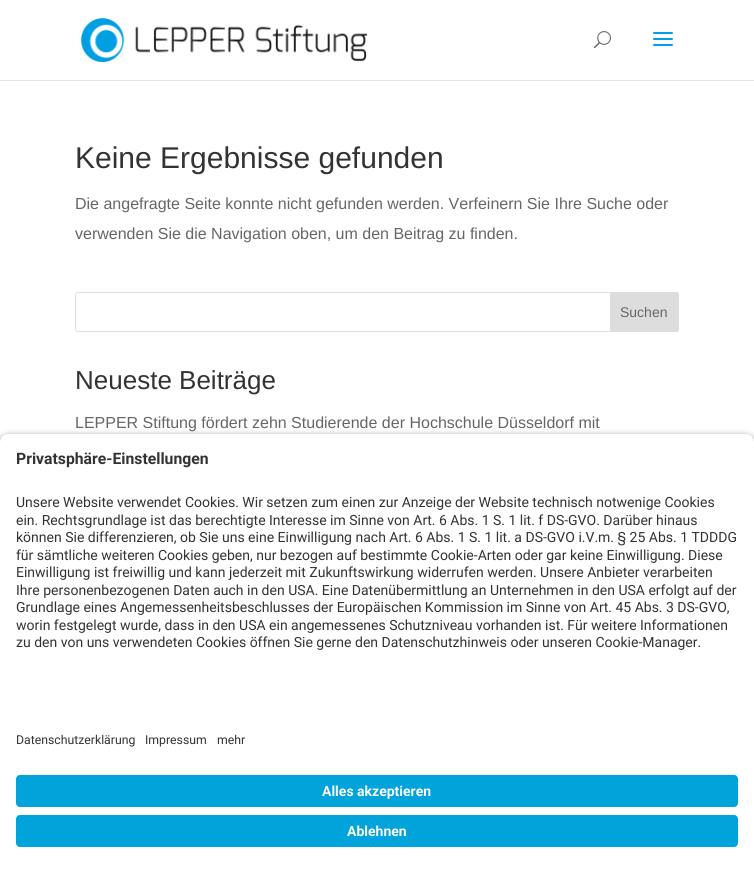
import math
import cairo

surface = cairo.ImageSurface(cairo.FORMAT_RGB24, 754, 875)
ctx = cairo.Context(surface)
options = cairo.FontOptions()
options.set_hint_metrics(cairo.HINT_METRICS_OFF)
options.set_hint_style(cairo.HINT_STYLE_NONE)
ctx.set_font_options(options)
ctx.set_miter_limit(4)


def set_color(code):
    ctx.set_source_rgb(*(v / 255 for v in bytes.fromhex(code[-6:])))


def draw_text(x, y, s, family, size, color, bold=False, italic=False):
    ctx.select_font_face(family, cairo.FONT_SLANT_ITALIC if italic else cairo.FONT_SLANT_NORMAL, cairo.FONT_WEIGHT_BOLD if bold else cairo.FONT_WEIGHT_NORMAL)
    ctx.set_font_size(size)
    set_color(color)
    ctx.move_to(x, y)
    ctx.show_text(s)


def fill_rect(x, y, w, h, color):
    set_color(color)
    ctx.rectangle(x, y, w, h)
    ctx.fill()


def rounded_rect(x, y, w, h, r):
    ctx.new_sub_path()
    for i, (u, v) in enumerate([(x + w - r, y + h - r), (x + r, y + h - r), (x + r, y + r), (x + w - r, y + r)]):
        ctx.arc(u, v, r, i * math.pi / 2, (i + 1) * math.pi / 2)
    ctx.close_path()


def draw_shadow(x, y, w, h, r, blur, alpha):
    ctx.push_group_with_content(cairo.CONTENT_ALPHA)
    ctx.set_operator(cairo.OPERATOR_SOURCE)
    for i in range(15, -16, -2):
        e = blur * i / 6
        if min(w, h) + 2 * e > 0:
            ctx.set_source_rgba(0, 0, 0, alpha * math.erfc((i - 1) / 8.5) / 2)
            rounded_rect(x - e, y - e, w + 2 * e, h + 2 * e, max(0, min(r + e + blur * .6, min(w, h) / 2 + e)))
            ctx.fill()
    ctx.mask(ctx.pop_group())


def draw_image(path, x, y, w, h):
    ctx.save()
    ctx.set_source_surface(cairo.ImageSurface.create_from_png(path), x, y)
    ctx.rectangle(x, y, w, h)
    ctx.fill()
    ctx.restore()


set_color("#ffffff")
ctx.paint()
fill_rect(0, 80, 754, 1, "#e6e6e6")
draw_image("assets/img1.png", 81, 18, 287, 44)
draw_image("assets/img2.png", 594, 31, 17, 18)
draw_image("assets/img3.png", 653, 32, 20, 14)
draw_text(75, 168, "Keine Ergebnisse gefunden", "Liberation Sans", 30, "#333333")
draw_text(75, 209, "Die angefragte Seite konnte nicht gefunden werden. Verfeinern Sie Ihre Suche oder", "Liberation Sans", 16, "#666666")
draw_text(75, 239, "verwenden Sie die Navigation oben, um den Beitrag zu finden.", "Liberation Sans", 16, "#666666")
rounded_rect(75.5, 292.5, 603, 39, 2.5)
set_color("#dddddd")
ctx.set_line_width(1)
ctx.stroke()
ctx.new_path()
ctx.move_to(610.5, 292.5)
ctx.line_to(676, 292.5)
ctx.curve_to(677.5, 292.5, 678.5, 293.5, 678.5, 295)
ctx.line_to(678.5, 329)
ctx.curve_to(678.5, 330.5, 677.5, 331.5, 676, 331.5)
ctx.line_to(610.5, 331.5)
ctx.close_path()
ctx.fill_preserve()
ctx.stroke()
draw_text(620, 317, "Suchen", "Liberation Sans", 14, "#666666")
draw_text(75, 389, "Neueste Beiträge", "Liberation Sans", 26, "#333333")
draw_text(75, 428, "LEPPER Stiftung fördert zehn Studierende der Hochschule Düsseldorf mit", "Liberation Sans", 16, "#666666")
set_color("#000000")
draw_shadow(0, 437, 754, 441, 8, 3.5, 0.8)
set_color("#ffffff")
ctx.new_path()
ctx.move_to(8, 434)
ctx.line_to(746, 434)
ctx.curve_to(750.5, 434, 754, 437.5, 754, 442)
ctx.line_to(754, 717)
ctx.line_to(0, 717)
ctx.line_to(0, 442)
ctx.curve_to(0, 437.5, 3.5, 434, 8, 434)
ctx.close_path()
ctx.fill()
draw_text(16, 464, "Privatsphäre-Einstellungen", "Roboto", 15.75, "#333333", bold=True)
draw_text(16, 507, "Unsere Website verwendet Cookies. Wir setzen zum einen zur Anzeige der Website technisch notwenige Cookies", "Roboto", 14, "#333333")
draw_text(16, 525, "ein. Rechtsgrundlage ist das berechtigte Interesse im Sinne von Art. 6 Abs. 1 S. 1 lit. f DS-GVO. Darüber hinaus", "Roboto", 14, "#333333")
draw_text(16, 542, "können Sie differenzieren, ob Sie uns eine Einwilligung nach Art. 6 Abs. 1 S. 1 lit. a DS-GVO i.V.m. § 25 Abs. 1 TDDDG", "Roboto", 14, "#333333")
draw_text(16, 560, "für sämtliche weiteren Cookies geben, nur bezogen auf bestimmte Cookie-Arten oder gar keine Einwilligung. Diese", "Roboto", 14, "#333333")
draw_text(16, 577, "Einwilligung ist freiwillig und kann jederzeit mit Zukunftswirkung widerrufen werden. Unsere Anbieter verarbeiten", "Roboto", 14, "#333333")
draw_text(16, 595, "Ihre personenbezogenen Daten auch in den USA. Eine Datenübermittlung an Unternehmen in den USA erfolgt auf der", "Roboto", 14, "#333333")
draw_text(16, 612, "Grundlage eines Angemessenheitsbeschlusses der Europäischen Kommission im Sinne von Art. 45 Abs. 3 DS-GVO,", "Roboto", 14, "#333333")
draw_text(16, 630, "worin festgelegt wurde, dass in den USA ein angemessenes Schutzniveau vorhanden ist. Für weitere Informationen", "Roboto", 14, "#333333")
draw_text(16, 647, "zu den von uns verwendeten Cookies öffnen Sie gerne den Datenschutzhinweis oder unseren Cookie-Manager.", "Roboto", 14, "#333333")
fill_rect(0, 717, 754, 158, "#ffffff")
draw_text(16, 744, "Datenschutzerklärung", "Roboto", 12.25, "#333333")
draw_text(145, 744, "Impressum", "Roboto", 12.25, "#333333")
draw_text(217, 744, "mehr", "Roboto", 12.25, "#333333")
set_color("#00a3da")
rounded_rect(16, 775, 722, 32, 4)
ctx.fill()
draw_text(322, 796, "Alles akzeptieren", "Roboto", 14, "#fafafa", bold=True)
set_color("#00a3da")
rounded_rect(16, 815, 722, 32, 4)
ctx.fill()
draw_text(347, 836, "Ablehnen", "Roboto", 14, "#fafafa", bold=True)
surface.write_to_png("output.png")
